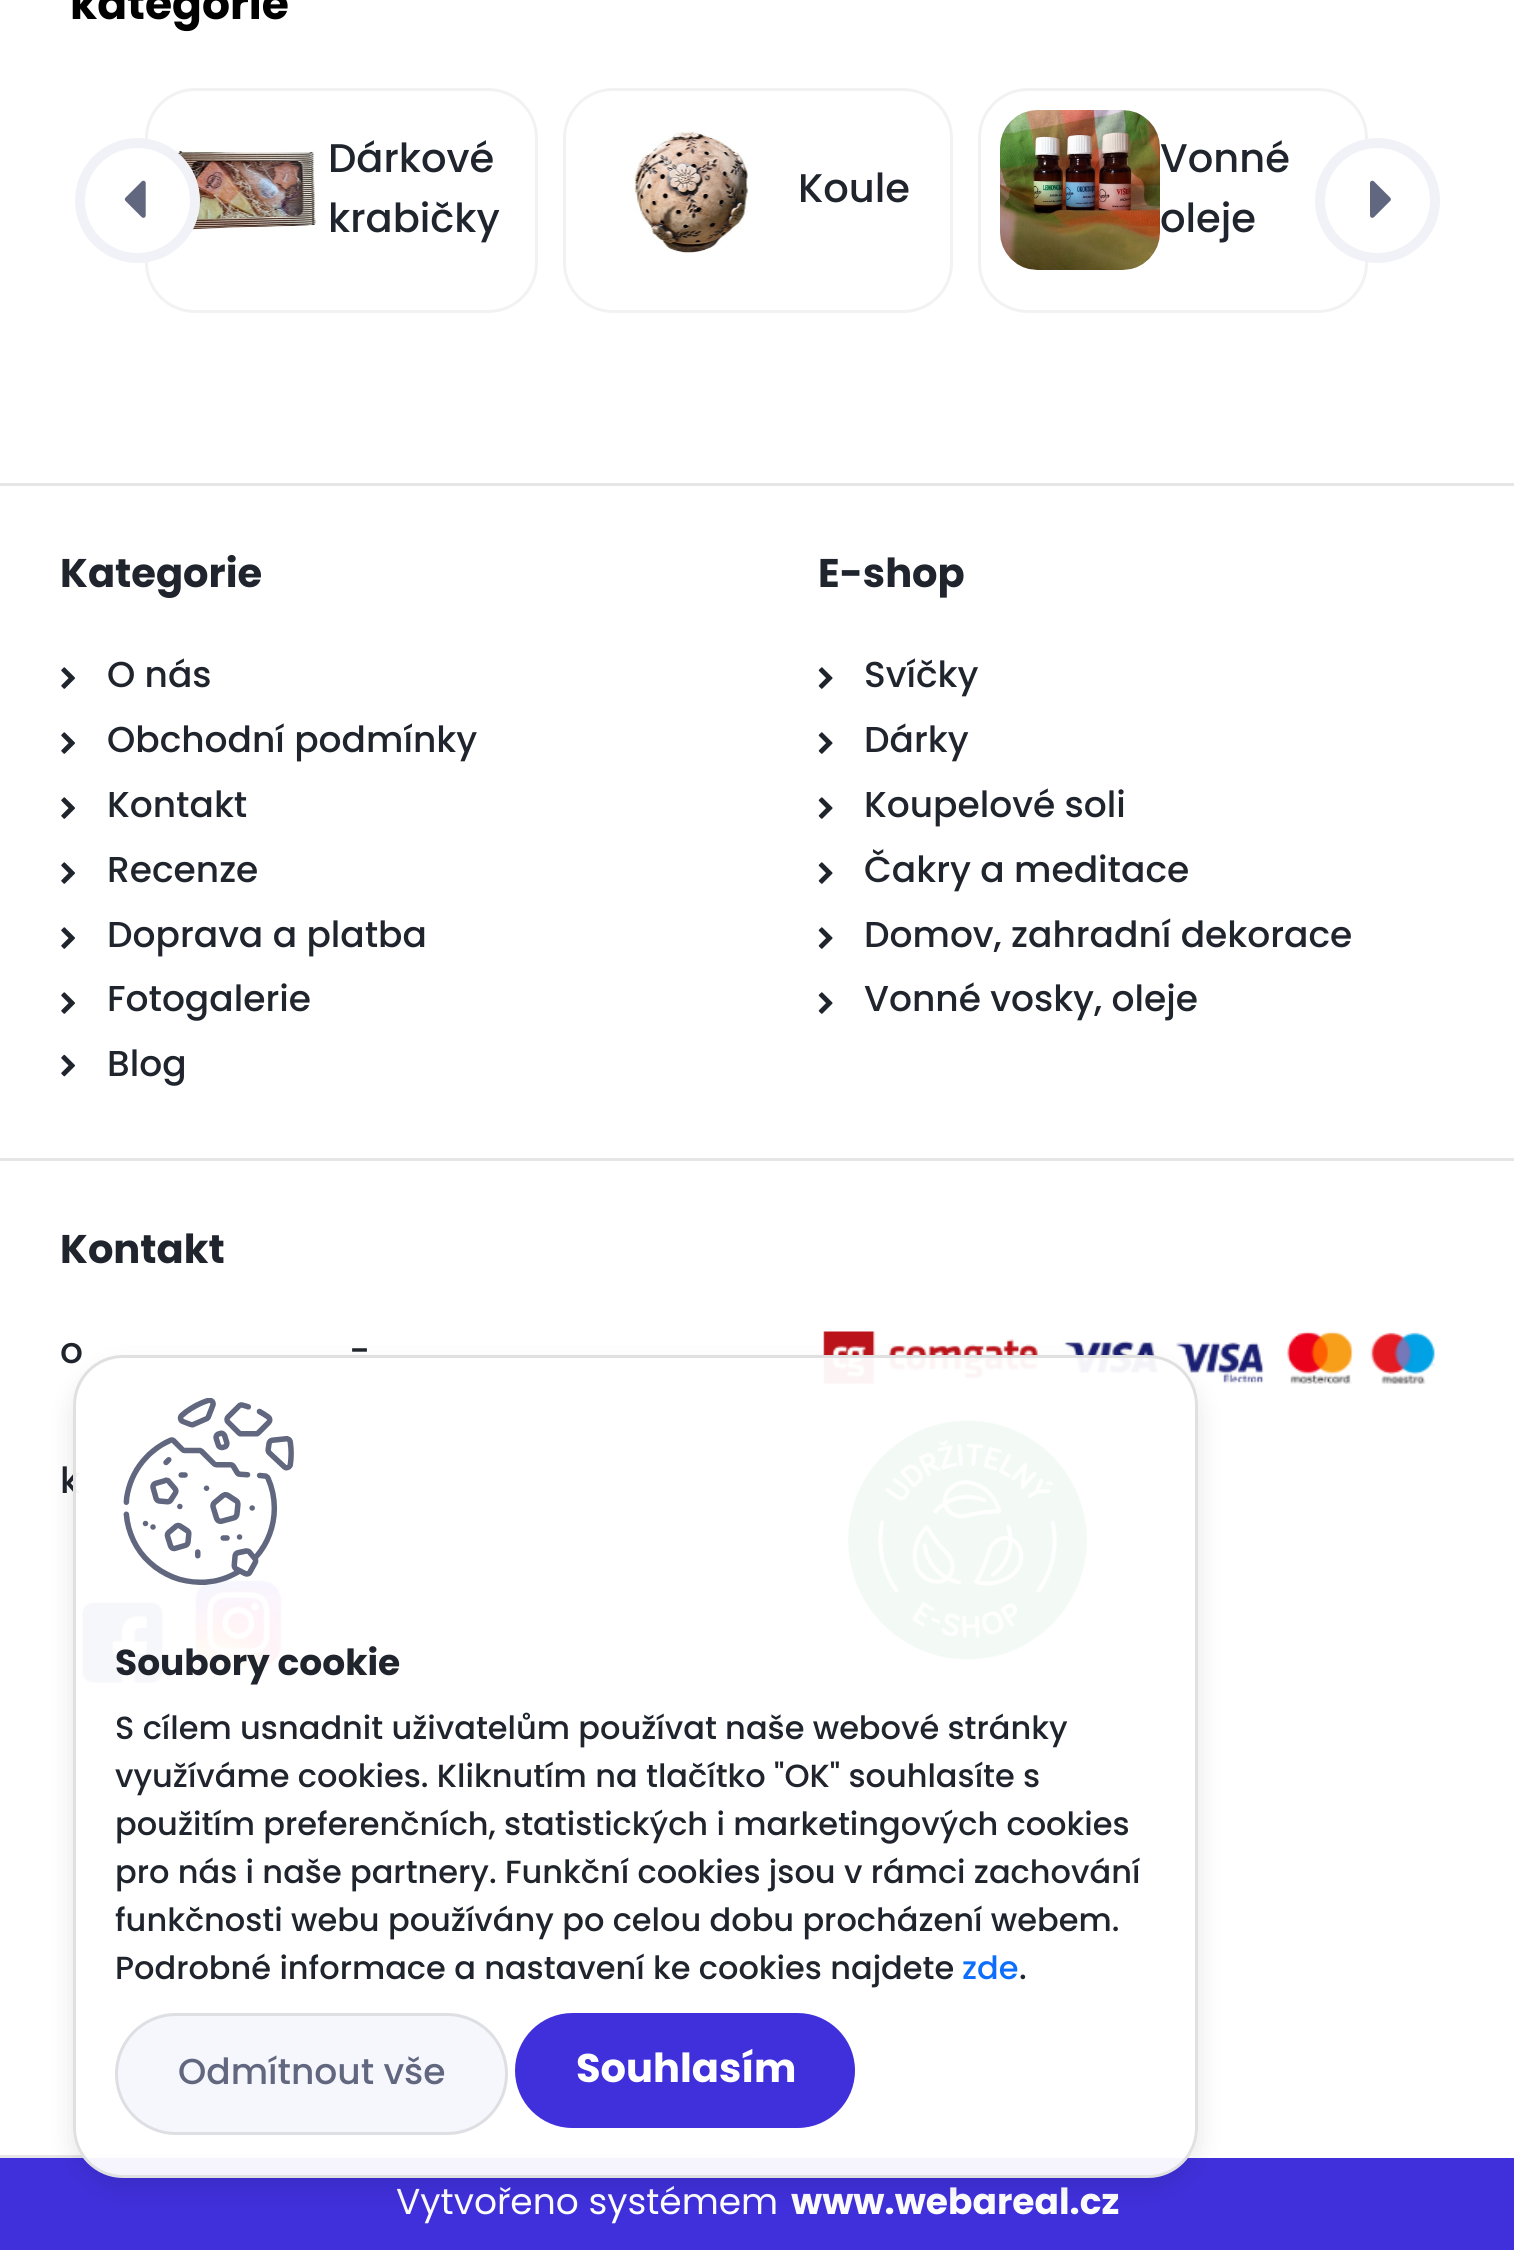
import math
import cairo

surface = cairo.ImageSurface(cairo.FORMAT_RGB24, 1514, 2250)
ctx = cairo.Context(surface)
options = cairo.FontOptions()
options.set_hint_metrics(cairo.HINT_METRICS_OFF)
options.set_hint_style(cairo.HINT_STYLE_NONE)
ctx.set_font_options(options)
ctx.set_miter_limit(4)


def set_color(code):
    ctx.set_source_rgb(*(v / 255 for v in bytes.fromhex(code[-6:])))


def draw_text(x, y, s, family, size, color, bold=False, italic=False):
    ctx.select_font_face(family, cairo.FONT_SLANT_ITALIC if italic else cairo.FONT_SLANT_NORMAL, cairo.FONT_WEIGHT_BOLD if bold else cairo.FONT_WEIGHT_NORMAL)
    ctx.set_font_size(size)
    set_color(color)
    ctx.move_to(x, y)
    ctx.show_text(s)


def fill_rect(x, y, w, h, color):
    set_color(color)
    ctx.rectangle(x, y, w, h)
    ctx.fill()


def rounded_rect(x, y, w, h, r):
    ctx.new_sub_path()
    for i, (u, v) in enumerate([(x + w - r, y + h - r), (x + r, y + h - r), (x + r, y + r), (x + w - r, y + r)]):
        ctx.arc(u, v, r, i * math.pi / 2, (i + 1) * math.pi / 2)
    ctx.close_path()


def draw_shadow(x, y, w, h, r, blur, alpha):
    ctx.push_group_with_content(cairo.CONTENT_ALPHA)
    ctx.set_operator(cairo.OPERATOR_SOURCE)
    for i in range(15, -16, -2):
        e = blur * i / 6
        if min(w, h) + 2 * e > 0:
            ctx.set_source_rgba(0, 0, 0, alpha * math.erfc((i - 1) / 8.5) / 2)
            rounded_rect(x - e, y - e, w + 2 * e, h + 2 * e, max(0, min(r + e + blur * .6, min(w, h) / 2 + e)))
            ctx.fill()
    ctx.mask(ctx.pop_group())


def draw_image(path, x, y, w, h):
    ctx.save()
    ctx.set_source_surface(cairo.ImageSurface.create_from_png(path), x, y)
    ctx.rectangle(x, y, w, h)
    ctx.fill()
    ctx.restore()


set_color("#ffffff")
ctx.paint()
draw_text(70, 19, "kategorie", "Poppins", 44, "#000000", bold=True)
rounded_rect(146.5, 89.5, 390, 222, 48.5)
set_color("#f2f2f2")
ctx.set_line_width(3)
ctx.stroke()
draw_image("assets/img3.png", 176, 150, 140, 80)
set_color("#ffffff")
ctx.arc(137.5, 200.5, 57.5, 0, 2 * math.pi)
ctx.fill_preserve()
set_color("#f1f2f7")
ctx.set_line_width(10)
ctx.stroke()
draw_image("assets/img1.png", 124, 180, 22, 38)
rounded_rect(979.5, 89.5, 387, 222, 48.5)
set_color("#f2f2f2")
ctx.set_line_width(3)
ctx.stroke()
set_color("#ffffff")
ctx.arc(1377.5, 200.5, 57.5, 0, 2 * math.pi)
ctx.fill_preserve()
set_color("#f1f2f7")
ctx.set_line_width(10)
ctx.stroke()
draw_image("assets/img2.png", 1370, 180, 21, 38)
draw_text(328, 172, "Dárkové", "Poppins Medium", 40, "#1f242d")
draw_text(328, 232, "krabičky", "Poppins Medium", 40, "#1f242d")
rounded_rect(564.5, 89.5, 387, 222, 48.5)
set_color("#f2f2f2")
ctx.set_line_width(3)
ctx.stroke()
draw_image("assets/img4.png", 634, 131, 115, 122)
draw_text(798, 202, "Koule", "Poppins Medium", 40, "#1f242d")
draw_image("assets/img5.png", 1000, 110, 160, 160)
draw_text(1160, 172, "Vonné", "Poppins Medium", 40, "#1f242d")
draw_text(1160, 232, "oleje", "Poppins Medium", 40, "#1f242d")
fill_rect(0, 483, 1514, 3, "#e6e6e6")
fill_rect(0, 1158, 1514, 3, "#e6e6e6")
draw_text(60, 587, "Kategorie", "Poppins", 40, "#1f242d", bold=True)
draw_image("assets/img6.png", 61, 667, 14, 22)
draw_text(107, 687, "O nás", "Poppins Medium", 36, "#1f242d")
draw_image("assets/img6.png", 61, 732, 14, 22)
draw_text(107, 752, "Obchodní podmínky", "Poppins Medium", 36, "#1f242d")
draw_image("assets/img6.png", 61, 797, 14, 22)
draw_text(107, 817, "Kontakt", "Poppins Medium", 36, "#1f242d")
draw_image("assets/img6.png", 61, 862, 14, 22)
draw_text(107, 882, "Recenze", "Poppins Medium", 36, "#1f242d")
draw_image("assets/img6.png", 61, 927, 14, 22)
draw_text(107, 947, "Doprava a platba", "Poppins Medium", 36, "#1f242d")
draw_image("assets/img6.png", 61, 992, 14, 22)
draw_text(107, 1011, "Fotogalerie", "Poppins Medium", 36, "#1f242d")
draw_image("assets/img7.png", 61, 1054, 14, 23)
draw_text(107, 1076, "Blog", "Poppins Medium", 36, "#1f242d")
draw_text(818, 587, "E-shop", "Poppins", 40, "#1f242d", bold=True)
draw_image("assets/img8.png", 818, 667, 15, 22)
draw_text(864, 687, "Svíčky", "Poppins Medium", 36, "#1f242d")
draw_image("assets/img8.png", 818, 732, 15, 22)
draw_text(864, 752, "Dárky", "Poppins Medium", 36, "#1f242d")
draw_image("assets/img8.png", 818, 797, 15, 22)
draw_text(864, 817, "Koupelové soli", "Poppins Medium", 36, "#1f242d")
draw_image("assets/img8.png", 818, 862, 15, 22)
draw_text(864, 882, "Čakry a meditace", "Poppins Medium", 36, "#1f242d")
draw_image("assets/img8.png", 818, 927, 15, 22)
draw_text(864, 947, "Domov, zahradní dekorace", "Poppins Medium", 36, "#1f242d")
draw_image("assets/img8.png", 818, 992, 15, 22)
draw_text(864, 1011, "Vonné vosky, oleje", "Poppins Medium", 36, "#1f242d")
fill_rect(0, 2155, 758, 3, "#e6e6e6")
draw_text(60, 1263, "Kontakt", "Poppins", 40, "#1f242d", bold=True)
draw_text(60, 1363, "o", "Poppins Medium", 36, "#1f242d")
draw_text(349, 1363, "-", "Poppins Medium", 36, "#1f242d")
draw_text(60, 1493, "k", "Poppins Medium", 36, "#1f242d")
draw_image("assets/img9.png", 82, 1602, 81, 82)
draw_image("assets/img10.png", 195, 1580, 88, 88)
draw_image("assets/img11.png", 823, 1331, 612, 54)
draw_image("assets/img12.png", 847, 1420, 240, 240)
fill_rect(0, 2158, 1514, 92, "#4030dc")
draw_text(396, 2214, "Vytvořeno systémem", "Poppins", 36, "#ffffff")
draw_text(791, 2214, "www.webareal.cz", "Poppins", 36, "#ffffff", bold=True)
ctx.save()
ctx.set_fill_rule(cairo.FILL_RULE_EVEN_ODD)
ctx.new_path()
ctx.move_to(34, 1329)
ctx.line_to(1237, 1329)
ctx.line_to(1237, 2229)
ctx.line_to(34, 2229)
ctx.close_path()
ctx.move_to(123, 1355)
ctx.line_to(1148, 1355)
ctx.curve_to(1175.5, 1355, 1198, 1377.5, 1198, 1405)
ctx.line_to(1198, 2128)
ctx.curve_to(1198, 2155.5, 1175.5, 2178, 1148, 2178)
ctx.line_to(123, 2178)
ctx.curve_to(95.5, 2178, 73, 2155.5, 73, 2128)
ctx.line_to(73, 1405)
ctx.curve_to(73, 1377.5, 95.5, 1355, 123, 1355)
ctx.close_path()
ctx.clip()
set_color("#000000")
draw_shadow(73, 1368, 1125, 822, 50, 12.5, 0.1)
ctx.restore()
ctx.set_source_rgba(1, 1, 1, 0.95)
rounded_rect(74.5, 1356.5, 1122, 820, 48.5)
ctx.fill_preserve()
set_color("#e0e0e0")
ctx.stroke()
draw_image("assets/img13.png", 123, 1398, 171, 187)
draw_text(115, 1675, "Soubory cookie", "Poppins", 36, "#1f242d", bold=True)
draw_text(115, 1739, "S cílem usnadnit uživatelům používat naše webové stránky", "Poppins Medium", 32, "#1f242d")
draw_text(115, 1787, "využíváme cookies. Kliknutím na tlačítko \"OK\" souhlasíte s", "Poppins Medium", 32, "#1f242d")
draw_text(115, 1835, "použitím preferenčních, statistických i marketingových cookies", "Poppins Medium", 32, "#1f242d")
draw_text(115, 1883, "pro nás i naše partnery. Funkční cookies jsou v rámci zachování", "Poppins Medium", 32, "#1f242d")
draw_text(115, 1931, "funkčnosti webu používány po celou dobu procházení webem.", "Poppins Medium", 32, "#1f242d")
draw_text(115, 1979, "Podrobné informace a nastavení ke cookies najdete", "Poppins Medium", 32, "#1f242d")
draw_text(962, 1979, "zde", "Poppins Medium", 32, "#0d6efd")
draw_text(1019, 1979, ".", "Poppins Medium", 32, "#1f242d")
set_color("#f6f7fc")
rounded_rect(115, 2013, 393, 122, 61)
ctx.fill()
rounded_rect(116.5, 2014.5, 390, 119, 59.5)
ctx.set_source_rgba(0, 0, 0, 0.1)
ctx.stroke()
draw_text(178, 2084, "Odmítnout vše", "Poppins Medium", 36, "#626780")
set_color("#4030dc")
rounded_rect(515, 2013, 340, 115, 57.5)
ctx.fill()
draw_text(576, 2082, "Souhlasím", "Poppins", 40, "#ffffff", bold=True)
surface.write_to_png("output.png")
